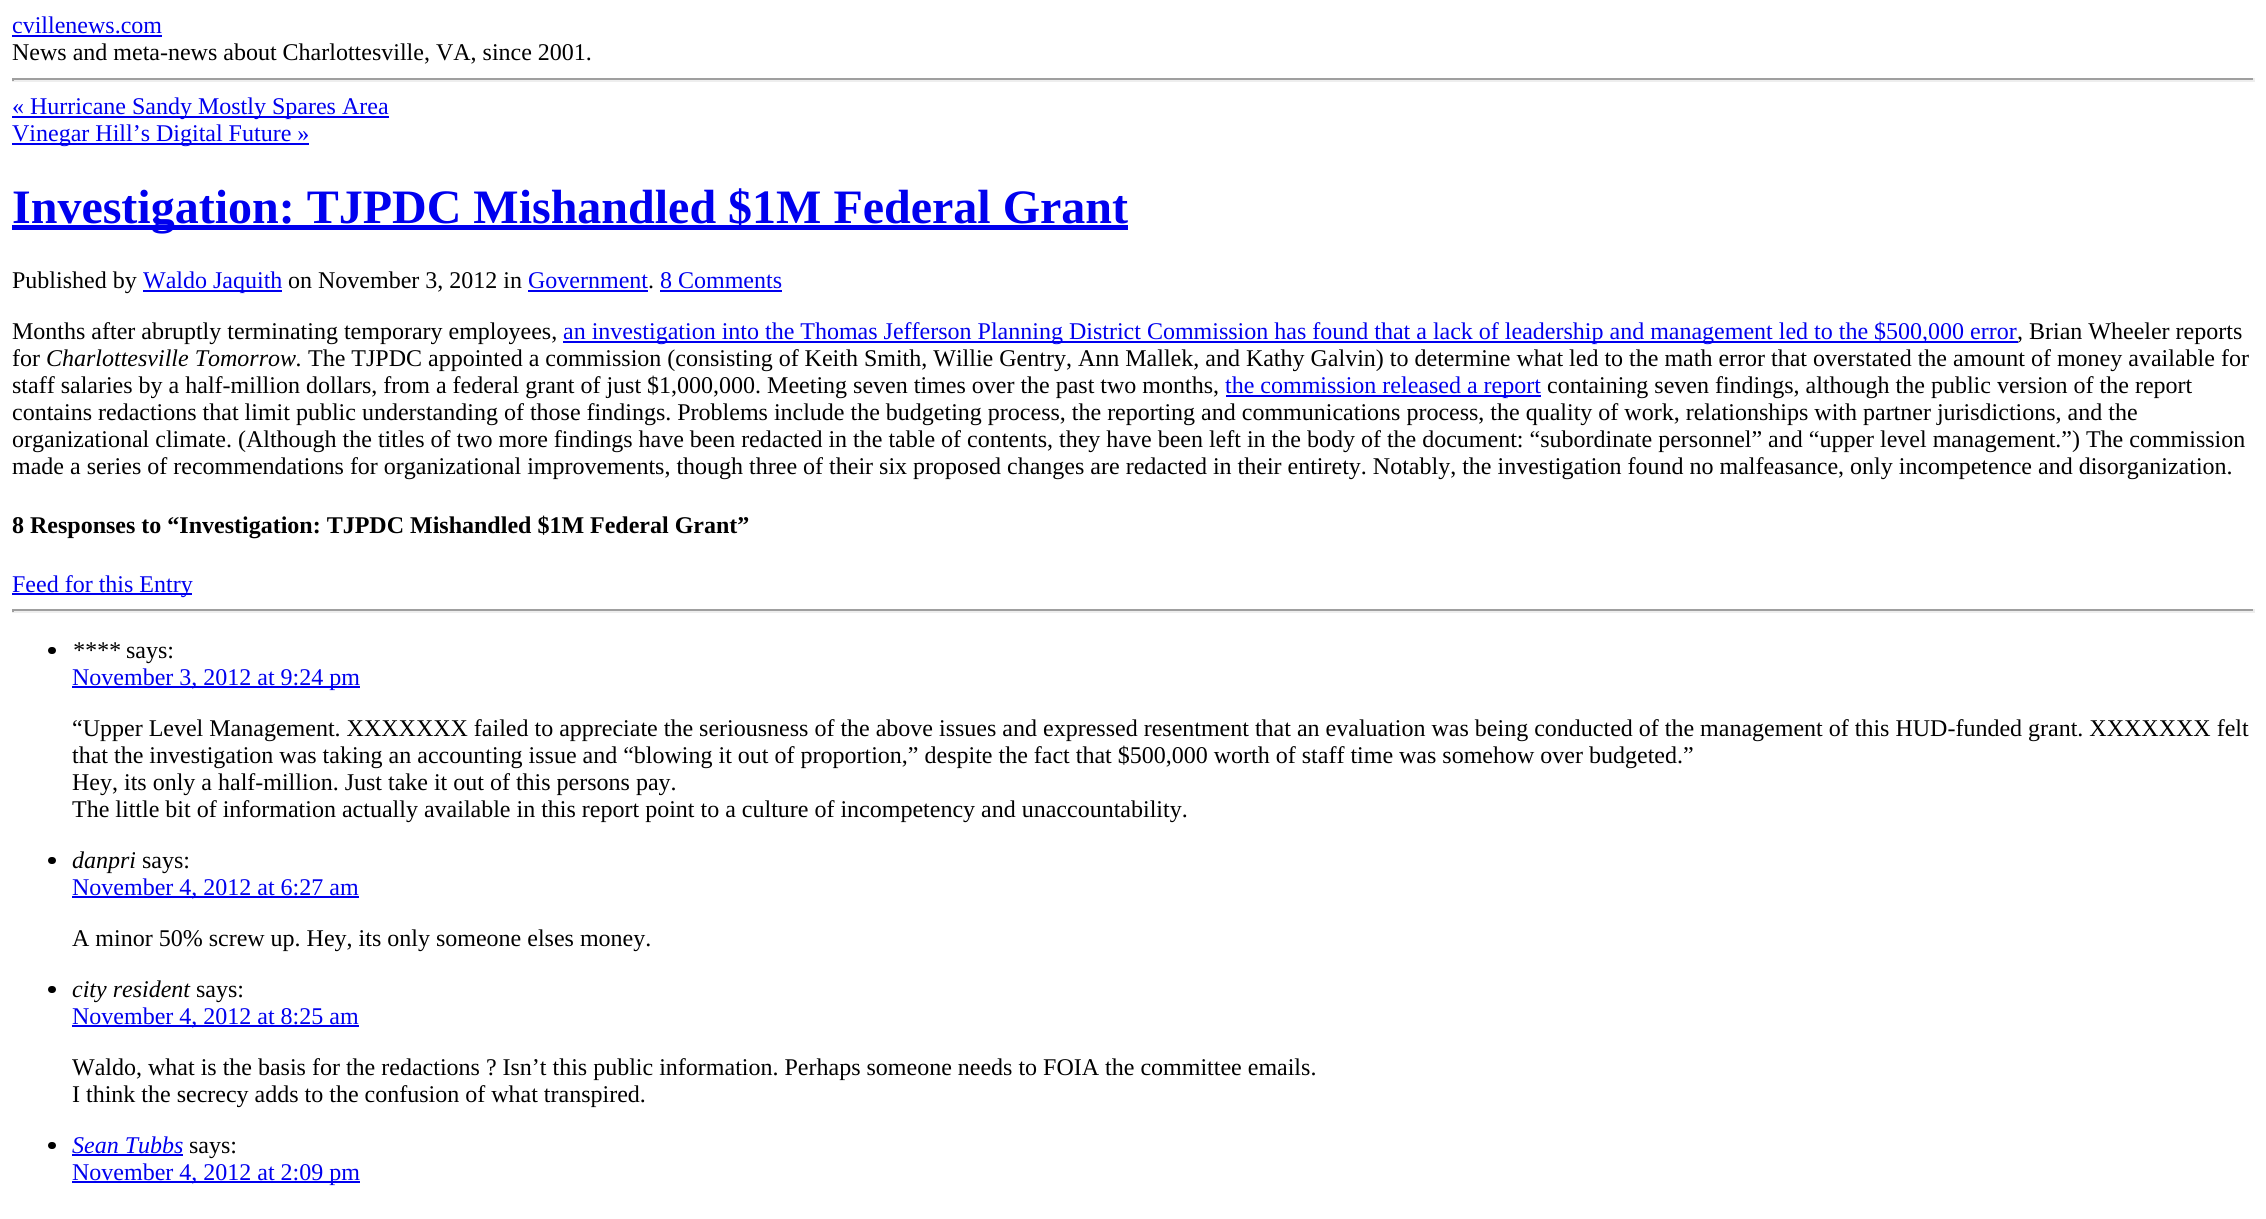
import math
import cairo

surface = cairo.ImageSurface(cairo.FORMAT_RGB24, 2266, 1219)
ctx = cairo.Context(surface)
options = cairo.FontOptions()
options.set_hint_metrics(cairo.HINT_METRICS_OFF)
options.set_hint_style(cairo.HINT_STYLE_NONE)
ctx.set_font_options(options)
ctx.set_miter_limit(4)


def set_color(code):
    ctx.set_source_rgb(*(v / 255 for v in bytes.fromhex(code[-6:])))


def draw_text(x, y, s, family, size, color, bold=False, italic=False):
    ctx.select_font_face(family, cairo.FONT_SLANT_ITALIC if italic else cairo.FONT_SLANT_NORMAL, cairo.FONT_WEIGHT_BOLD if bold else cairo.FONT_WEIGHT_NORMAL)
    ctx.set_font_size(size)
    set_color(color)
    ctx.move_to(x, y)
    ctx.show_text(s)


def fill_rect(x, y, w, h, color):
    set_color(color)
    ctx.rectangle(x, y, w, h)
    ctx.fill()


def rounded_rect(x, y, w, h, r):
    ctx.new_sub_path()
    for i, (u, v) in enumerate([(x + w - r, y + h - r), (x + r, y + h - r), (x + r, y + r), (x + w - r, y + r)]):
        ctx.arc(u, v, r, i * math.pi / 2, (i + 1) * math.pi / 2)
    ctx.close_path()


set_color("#ffffff")
ctx.paint()
draw_text(12, 33, "cvillenews.com", "Liberation Serif", 24, "#0000ee")
fill_rect(12, 35, 150, 2, "#0000ee")
draw_text(12, 60, "News and meta-news about Charlottesville, VA, since 2001.", "Liberation Serif", 24, "#000000")
fill_rect(12, 78, 2243, 2, "#9f9f9f")
fill_rect(2253, 78, 2, 3, "#eeeeee")
fill_rect(12, 80, 2243, 2, "#eeeeee")
fill_rect(12, 78, 2, 3, "#9f9f9f")
fill_rect(12, 116, 377, 2, "#0000ee")
draw_text(12, 114, "« Hurricane Sandy Mostly Spares Area", "Liberation Serif", 24, "#0000ee")
fill_rect(12, 143, 297, 2, "#0000ee")
draw_text(12, 141, "Vinegar Hill’s Digital Future »", "Liberation Serif", 24, "#0000ee")
fill_rect(12, 225, 1116, 5, "#0000ee")
draw_text(12, 223, "Investigation: TJPDC Mishandled $1M Federal Grant", "Liberation Serif", 48, "#0000ee", bold=True)
draw_text(12, 288, "Published by", "Liberation Serif", 24, "#000000")
fill_rect(143, 290, 139, 2, "#0000ee")
draw_text(143, 288, "Waldo Jaquith", "Liberation Serif", 24, "#0000ee")
draw_text(288, 288, "on November 3, 2012 in", "Liberation Serif", 24, "#000000")
draw_text(528, 288, "Government", "Liberation Serif", 24, "#0000ee")
fill_rect(528, 290, 120, 2, "#0000ee")
draw_text(648, 288, ".", "Liberation Serif", 24, "#000000")
draw_text(660, 288, "8 Comments", "Liberation Serif", 24, "#0000ee")
fill_rect(660, 290, 122, 2, "#0000ee")
draw_text(12, 339, "Months after abruptly terminating temporary employees,", "Liberation Serif", 24, "#000000")
fill_rect(563, 341, 1455, 2, "#0000ee")
draw_text(563, 339, "an investigation into the Thomas Jefferson Planning District Commission has found that a lack of leadership and management led to the $500,000 error", "Liberation Serif", 24, "#0000ee")
draw_text(2017, 339, ", Brian Wheeler reports", "Liberation Serif", 24, "#000000")
draw_text(12, 366, "for", "Liberation Serif", 24, "#000000")
draw_text(46, 366, "Charlottesville Tomorrow.", "Liberation Serif", 24, "#000000", italic=True)
draw_text(308, 366, "The TJPDC appointed a commission (consisting of Keith Smith, Willie Gentry, Ann Mallek, and Kathy Galvin) to determine what led to the math error that overstated the amount of money available for", "Liberation Serif", 24, "#000000")
draw_text(12, 393, "staff salaries by a half-million dollars, from a federal grant of just $1,000,000. Meeting seven times over the past two months,", "Liberation Serif", 24, "#000000")
fill_rect(1226, 395, 315, 2, "#0000ee")
draw_text(1225, 393, "the commission released a report", "Liberation Serif", 24, "#0000ee")
draw_text(1547, 393, "containing seven findings, although the public version of the report", "Liberation Serif", 24, "#000000")
draw_text(12, 420, "contains redactions that limit public understanding of those findings. Problems include the budgeting process, the reporting and communications process, the quality of work, relationships with partner jurisdictions, and the", "Liberation Serif", 24, "#000000")
draw_text(12, 447, "organizational climate. (Although the titles of two more findings have been redacted in the table of contents, they have been left in the body of the document: “subordinate personnel” and “upper level management.”) The commission", "Liberation Serif", 24, "#000000")
draw_text(12, 474, "made a series of recommendations for organizational improvements, though three of their six proposed changes are redacted in their entirety. Notably, the investigation found no malfeasance, only incompetence and disorganization.", "Liberation Serif", 24, "#000000")
draw_text(12, 533, "8 Responses to “Investigation: TJPDC Mishandled $1M Federal Grant”", "Liberation Serif", 24, "#000000", bold=True)
fill_rect(12, 593, 180, 2, "#0000ee")
draw_text(12, 592, "Feed for this Entry", "Liberation Serif", 24, "#0000ee")
fill_rect(12, 609, 2243, 2, "#9f9f9f")
fill_rect(2253, 609, 2, 3, "#eeeeee")
fill_rect(12, 611, 2243, 2, "#eeeeee")
fill_rect(12, 609, 2, 3, "#9f9f9f")
set_color("#000000")
rounded_rect(48, 647, 8, 7, 3.5)
ctx.fill()
draw_text(72, 658, "****", "Liberation Serif", 24, "#000000", italic=True)
draw_text(126, 658, "says:", "Liberation Serif", 24, "#000000")
fill_rect(72, 686, 288, 2, "#0000ee")
draw_text(72, 685, "November 3, 2012 at 9:24 pm", "Liberation Serif", 24, "#0000ee")
draw_text(72, 736, "“Upper Level Management. XXXXXXX failed to appreciate the seriousness of the above issues and expressed resentment that an evaluation was being conducted of the management of this HUD-funded grant. XXXXXXX felt", "Liberation Serif", 24, "#000000")
draw_text(72, 763, "that the investigation was taking an accounting issue and “blowing it out of proportion,” despite the fact that $500,000 worth of staff time was somehow over budgeted.”", "Liberation Serif", 24, "#000000")
draw_text(72, 790, "Hey, its only a half-million. Just take it out of this persons pay.", "Liberation Serif", 24, "#000000")
draw_text(72, 817, "The little bit of information actually available in this report point to a culture of incompetency and unaccountability.", "Liberation Serif", 24, "#000000")
rounded_rect(48, 857, 8, 7, 3.5)
ctx.fill()
draw_text(72, 868, "danpri", "Liberation Serif", 24, "#000000", italic=True)
draw_text(142, 868, "says:", "Liberation Serif", 24, "#000000")
fill_rect(72, 896, 287, 2, "#0000ee")
draw_text(72, 895, "November 4, 2012 at 6:27 am", "Liberation Serif", 24, "#0000ee")
draw_text(72, 946, "A minor 50% screw up. Hey, its only someone elses money.", "Liberation Serif", 24, "#000000")
rounded_rect(48, 986, 8, 7, 3.5)
ctx.fill()
draw_text(72, 997, "city resident", "Liberation Serif", 24, "#000000", italic=True)
draw_text(196, 997, "says:", "Liberation Serif", 24, "#000000")
fill_rect(72, 1025, 287, 2, "#0000ee")
draw_text(72, 1024, "November 4, 2012 at 8:25 am", "Liberation Serif", 24, "#0000ee")
draw_text(72, 1075, "Waldo, what is the basis for the redactions ? Isn’t this public information. Perhaps someone needs to FOIA the committee emails.", "Liberation Serif", 24, "#000000")
draw_text(72, 1102, "I think the secrecy adds to the confusion of what transpired.", "Liberation Serif", 24, "#000000")
rounded_rect(48, 1142, 8, 7, 3.5)
ctx.fill()
draw_text(72, 1153, "Sean Tubbs", "Liberation Serif", 24, "#0000ee", italic=True)
fill_rect(72, 1154, 111, 2, "#0000ee")
draw_text(189, 1153, "says:", "Liberation Serif", 24, "#000000")
fill_rect(72, 1181, 288, 2, "#0000ee")
draw_text(72, 1180, "November 4, 2012 at 2:09 pm", "Liberation Serif", 24, "#0000ee")
surface.write_to_png("output.png")
